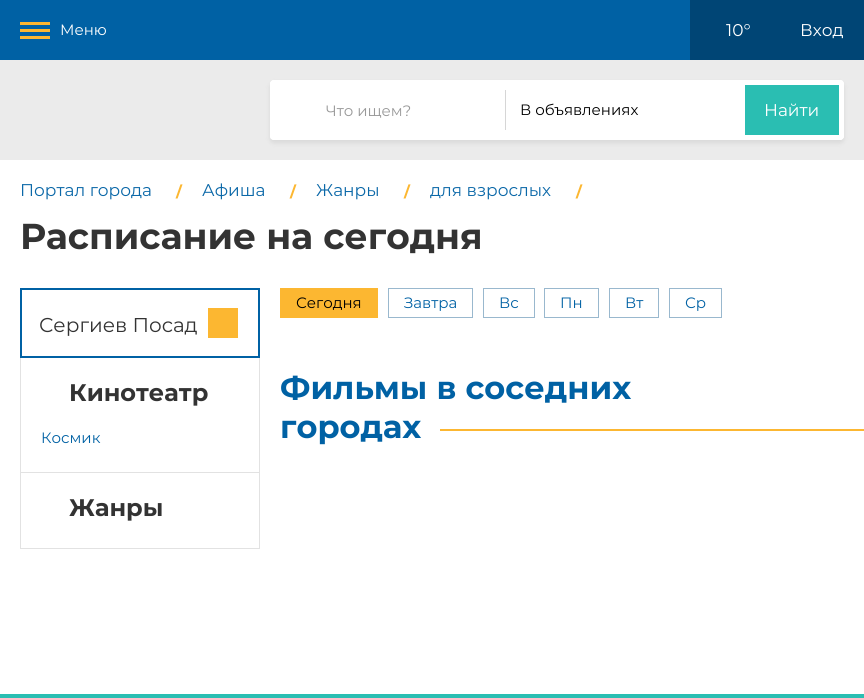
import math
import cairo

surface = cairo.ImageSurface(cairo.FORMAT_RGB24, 864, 698)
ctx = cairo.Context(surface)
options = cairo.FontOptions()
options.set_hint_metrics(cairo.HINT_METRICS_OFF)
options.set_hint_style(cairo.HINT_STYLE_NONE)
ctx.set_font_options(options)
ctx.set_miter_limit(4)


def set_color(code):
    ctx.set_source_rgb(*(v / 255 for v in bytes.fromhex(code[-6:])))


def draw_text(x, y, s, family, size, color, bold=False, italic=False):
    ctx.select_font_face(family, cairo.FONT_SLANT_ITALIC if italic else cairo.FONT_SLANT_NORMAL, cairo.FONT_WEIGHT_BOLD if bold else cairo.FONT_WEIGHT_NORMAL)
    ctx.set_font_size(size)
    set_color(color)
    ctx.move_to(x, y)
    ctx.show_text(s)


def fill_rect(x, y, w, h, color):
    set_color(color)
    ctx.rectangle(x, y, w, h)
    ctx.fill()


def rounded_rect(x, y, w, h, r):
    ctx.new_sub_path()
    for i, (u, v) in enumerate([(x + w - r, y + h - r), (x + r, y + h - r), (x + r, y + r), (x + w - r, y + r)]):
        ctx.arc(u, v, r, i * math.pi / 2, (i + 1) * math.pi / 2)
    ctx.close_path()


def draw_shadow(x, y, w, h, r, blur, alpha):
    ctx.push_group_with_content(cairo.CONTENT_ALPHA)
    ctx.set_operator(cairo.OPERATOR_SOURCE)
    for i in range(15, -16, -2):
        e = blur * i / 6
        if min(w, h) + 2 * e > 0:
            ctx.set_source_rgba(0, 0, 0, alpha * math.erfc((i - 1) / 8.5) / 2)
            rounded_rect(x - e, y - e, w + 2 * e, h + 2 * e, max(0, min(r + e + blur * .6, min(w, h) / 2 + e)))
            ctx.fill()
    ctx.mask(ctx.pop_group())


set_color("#ffffff")
ctx.paint()
fill_rect(0, 0, 690, 60, "#0061a4")
fill_rect(20, 22, 30, 3, "#fcb731")
fill_rect(20, 29, 30, 3, "#fcb731")
fill_rect(20, 36, 30, 3, "#fcb731")
draw_text(60, 35, "Меню", "Montserrat", 15, "#ffffff")
fill_rect(690, 0, 174, 60, "#004575")
draw_text(726, 36, "10°", "Montserrat", 17, "#ffffff")
draw_text(800, 36, "Вход", "Montserrat", 17, "#ffffff")
fill_rect(0, 60, 864, 100, "#ebebeb")
set_color("#848484")
draw_shadow(270, 83, 574, 60, 4, 2.5, 0.18)
set_color("#ffffff")
rounded_rect(270, 80, 574, 60, 4)
ctx.fill()
rounded_rect(270, 80, 235, 60, 4)
ctx.fill()
draw_text(326, 116, "Что ищем?", "Montserrat", 15, "#999999")
set_color("#ffffff")
rounded_rect(505, 80, 339, 60, 4)
ctx.fill()
fill_rect(505, 90, 1, 40, "#d6d6d6")
draw_text(520, 115, "В объявлениях", "Montserrat", 15, "#000000")
fill_rect(745, 85, 94, 50, "#2abeb2")
draw_text(764, 116, "Найти", "Montserrat", 17, "#ffffff")
draw_text(20, 196, "Портал города", "Montserrat", 17, "#0b68a8")
draw_text(176, 197, "/", "Montserrat", 15, "#fcb731", bold=True)
draw_text(202, 196, "Афиша", "Montserrat", 17, "#0b68a8")
draw_text(290, 197, "/", "Montserrat", 15, "#fcb731", bold=True)
draw_text(316, 196, "Жанры", "Montserrat", 17, "#0b68a8")
draw_text(404, 197, "/", "Montserrat", 15, "#fcb731", bold=True)
draw_text(430, 196, "для взрослых", "Montserrat", 17, "#0b68a8")
draw_text(576, 197, "/", "Montserrat", 15, "#fcb731", bold=True)
draw_text(20, 249, "Расписание на сегодня", "Montserrat", 36, "#333333", bold=True)
ctx.rectangle(21, 289, 238, 68)
set_color("#0061a4")
ctx.stroke()
draw_text(39, 332, "Сергиев Посад", "Montserrat", 20, "#333333")
fill_rect(208, 308, 30, 30, "#fcb731")
fill_rect(259, 358, 1, 191, "#e2e2e2")
fill_rect(20, 548, 240, 1, "#e2e2e2")
fill_rect(20, 358, 1, 191, "#e2e2e2")
draw_text(69, 401, "Кинотеатр", "Montserrat", 24, "#333333", bold=True)
draw_text(41, 443, "Космик", "Montserrat", 15, "#0061a4")
fill_rect(21, 472, 238, 1, "#e2e2e2")
draw_text(69, 516, "Жанры", "Montserrat", 24, "#333333", bold=True)
fill_rect(280, 288, 98, 30, "#fcb731")
draw_text(296, 308, "Сегодня", "Montserrat", 15, "#000000")
ctx.rectangle(388.5, 288.5, 84, 29)
set_color("#99b8ce")
ctx.set_line_width(1)
ctx.stroke()
draw_text(404, 308, "Завтра", "Montserrat", 15, "#0061a4")
ctx.rectangle(483.5, 288.5, 51, 29)
set_color("#99b8ce")
ctx.stroke()
draw_text(499, 308, "Вс", "Montserrat", 15, "#0061a4")
ctx.rectangle(544.5, 288.5, 54, 29)
set_color("#99b8ce")
ctx.stroke()
draw_text(560, 308, "Пн", "Montserrat", 15, "#0061a4")
ctx.rectangle(609.5, 288.5, 49, 29)
set_color("#99b8ce")
ctx.stroke()
draw_text(625, 308, "Вт", "Montserrat", 15, "#0061a4")
ctx.rectangle(669.5, 288.5, 52, 29)
set_color("#99b8ce")
ctx.stroke()
draw_text(685, 308, "Ср", "Montserrat", 15, "#0061a4")
draw_text(280, 399, "Фильмы в соседних", "Montserrat", 32, "#0061a4", bold=True)
draw_text(280, 438, "городах", "Montserrat", 32, "#0061a4", bold=True)
fill_rect(440, 429, 424, 2, "#fcb731")
fill_rect(0, 694, 864, 4, "#2abeb2")
surface.write_to_png("output.png")
